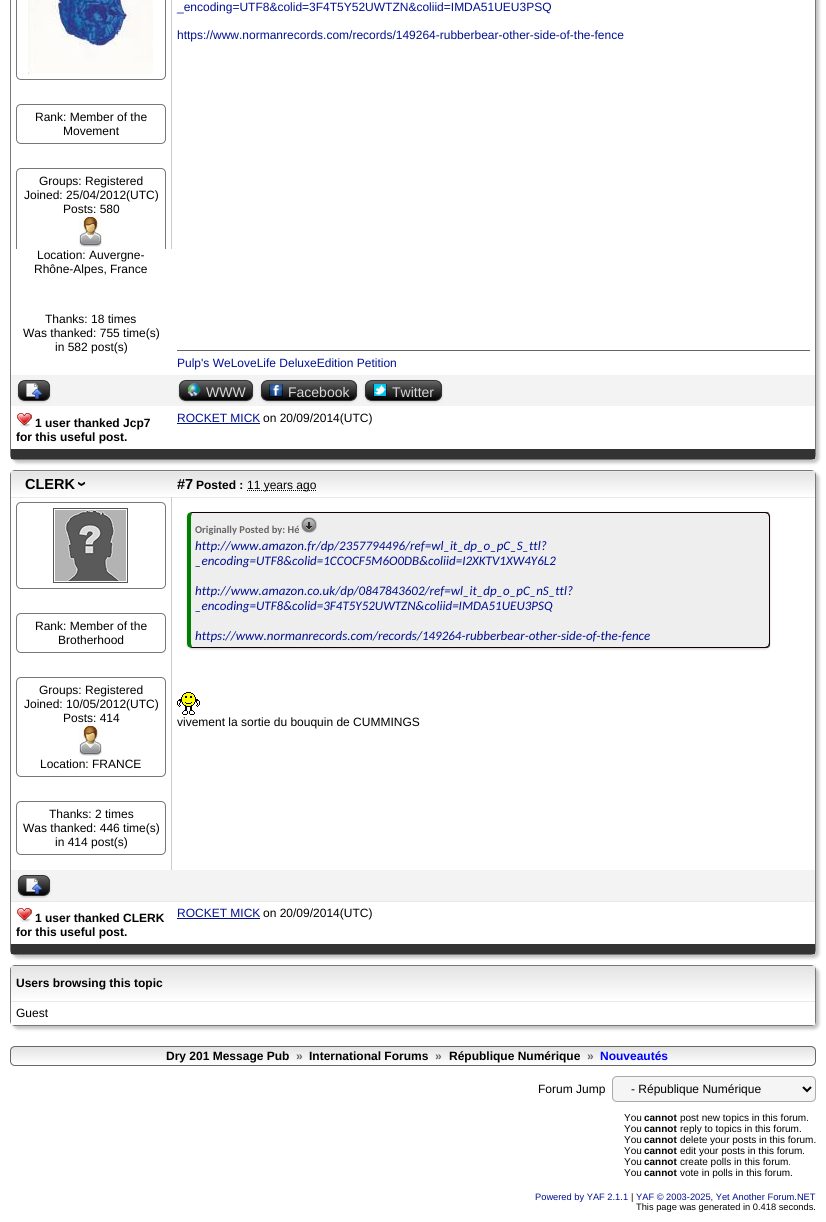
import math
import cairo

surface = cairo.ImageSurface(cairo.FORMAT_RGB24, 826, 1222)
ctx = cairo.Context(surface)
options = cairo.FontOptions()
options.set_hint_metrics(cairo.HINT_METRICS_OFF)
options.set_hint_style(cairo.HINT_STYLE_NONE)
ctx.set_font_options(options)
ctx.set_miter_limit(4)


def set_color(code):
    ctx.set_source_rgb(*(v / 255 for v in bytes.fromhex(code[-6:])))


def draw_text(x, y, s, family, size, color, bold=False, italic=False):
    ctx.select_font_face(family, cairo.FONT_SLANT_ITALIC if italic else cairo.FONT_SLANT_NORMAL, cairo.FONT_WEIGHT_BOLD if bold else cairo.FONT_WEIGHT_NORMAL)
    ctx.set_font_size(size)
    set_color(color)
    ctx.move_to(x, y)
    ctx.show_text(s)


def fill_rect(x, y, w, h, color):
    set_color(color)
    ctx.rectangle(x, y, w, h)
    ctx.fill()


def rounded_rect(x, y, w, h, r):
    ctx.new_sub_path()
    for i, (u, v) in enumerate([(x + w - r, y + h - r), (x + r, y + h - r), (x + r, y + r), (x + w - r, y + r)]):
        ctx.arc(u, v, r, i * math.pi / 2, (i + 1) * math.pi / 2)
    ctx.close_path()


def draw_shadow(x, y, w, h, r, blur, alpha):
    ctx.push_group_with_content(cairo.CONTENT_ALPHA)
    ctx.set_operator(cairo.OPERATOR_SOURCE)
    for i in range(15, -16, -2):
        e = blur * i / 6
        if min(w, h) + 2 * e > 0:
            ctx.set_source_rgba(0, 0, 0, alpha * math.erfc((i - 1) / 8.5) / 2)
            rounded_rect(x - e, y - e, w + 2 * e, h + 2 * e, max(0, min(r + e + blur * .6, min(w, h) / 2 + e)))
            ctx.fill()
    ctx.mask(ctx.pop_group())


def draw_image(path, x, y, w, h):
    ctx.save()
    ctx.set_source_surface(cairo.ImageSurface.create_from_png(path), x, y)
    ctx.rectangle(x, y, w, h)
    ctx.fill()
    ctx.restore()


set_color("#ffffff")
ctx.paint()
ctx.save()
ctx.set_fill_rule(cairo.FILL_RULE_EVEN_ODD)
ctx.new_path()
ctx.move_to(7, 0)
ctx.line_to(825, 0)
ctx.line_to(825, 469)
ctx.line_to(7, 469)
ctx.close_path()
ctx.move_to(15, -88)
ctx.line_to(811, -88)
ctx.curve_to(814, -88, 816, -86, 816, -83)
ctx.line_to(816, 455)
ctx.curve_to(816, 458, 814, 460, 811, 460)
ctx.line_to(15, 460)
ctx.curve_to(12, 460, 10, 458, 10, 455)
ctx.line_to(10, -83)
ctx.curve_to(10, -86, 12, -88, 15, -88)
ctx.close_path()
ctx.clip()
set_color("#c3c3c3")
draw_shadow(13, -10, 806, 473, 5, 1.5, 1)
ctx.restore()
rounded_rect(10.5, -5.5, 805, 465, 4.5)
set_color("#777777")
ctx.set_line_width(1)
ctx.stroke()
draw_text(177, 11, "_encoding=UTF8&colid=3F4T5Y52UWTZN&coliid=IMDA51UEU3PSQ", "Liberation Sans", 12, "#001090")
draw_text(177, 39, "https://www.normanrecords.com/records/149264-rubberbear-other-side-of-the-fence", "Liberation Sans", 12, "#001090")
fill_rect(171, 0, 1, 249, "#cccccc")
rounded_rect(16.5, -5.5, 149, 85, 4.5)
set_color("#777777")
ctx.stroke()
draw_image("assets/img1.png", 28, 0, 125, 74)
rounded_rect(16.5, 104.5, 149, 39, 4.5)
ctx.stroke()
draw_text(35, 121, "Rank: Member of the", "Liberation Sans", 12, "#000000")
draw_text(63, 135, "Movement", "Liberation Sans", 12, "#000000")
rounded_rect(16.5, 168.5, 149, 113, 4.5)
set_color("#777777")
ctx.stroke()
draw_text(39, 185, "Groups: Registered", "Liberation Sans", 12, "#000000")
draw_text(24, 199, "Joined: 25/04/2012(UTC)", "Liberation Sans", 12, "#000000")
draw_text(63, 213, "Posts: 580", "Liberation Sans", 12, "#000000")
draw_image("assets/img2.png", 79, 217, 23, 30)
fill_rect(16, 249, 150, 33, "#ffffff")
draw_text(37, 259, "Location: Auvergne-", "Liberation Sans", 12, "#000000")
draw_text(34, 273, "Rhône-Alpes, France", "Liberation Sans", 12, "#000000")
draw_text(45, 323, "Thanks: 18 times", "Liberation Sans", 12, "#000000")
draw_text(23, 337, "Was thanked: 755 time(s)", "Liberation Sans", 12, "#000000")
draw_text(55, 351, "in 582 post(s)", "Liberation Sans", 12, "#000000")
fill_rect(177, 350, 633, 1, "#666666")
draw_text(177, 367, "Pulp's WeLoveLife DeluxeEdition Petition", "Liberation Sans", 12, "#001090")
fill_rect(11, 375, 804, 31, "#f3f3f3")
set_color("#000000")
draw_shadow(18, 381, 32, 21, 7, 1, 0.2)
ctx.save()
rounded_rect(18, 380, 32, 21, 7)
ctx.clip()
gradient = cairo.LinearGradient(19, 381, 19, 400)
gradient.add_color_stop_rgba(0, 0.4, 0.4, 0.4, 1)
gradient.add_color_stop_rgba(1, 0, 0, 0, 1)
ctx.set_source(gradient)
ctx.rectangle(18, 381, 32, 19)
ctx.fill()
ctx.restore()
rounded_rect(18.5, 380.5, 31, 20, 6.5)
set_color("#333333")
ctx.stroke()
draw_image("assets/img3.png", 26, 383, 16, 16)
set_color("#000000")
draw_shadow(179, 381, 74, 21, 7, 1, 0.2)
ctx.save()
rounded_rect(179, 380, 74, 21, 7)
ctx.clip()
gradient = cairo.LinearGradient(180, 381, 180, 400)
gradient.add_color_stop_rgba(0, 0.4, 0.4, 0.4, 1)
gradient.add_color_stop_rgba(1, 0, 0, 0, 1)
ctx.set_source(gradient)
ctx.rectangle(179, 381, 74, 19)
ctx.fill()
ctx.restore()
rounded_rect(179.5, 380.5, 73, 20, 6.5)
set_color("#333333")
ctx.stroke()
draw_image("assets/img4.png", 187, 383, 14, 14)
draw_text(206, 397, "WWW", "Liberation Sans", 14, "#d7d7d7")
set_color("#000000")
draw_shadow(261, 381, 96, 21, 7, 1, 0.2)
ctx.save()
rounded_rect(261, 380, 96, 21, 7)
ctx.clip()
gradient = cairo.LinearGradient(262, 381, 262, 400)
gradient.add_color_stop_rgba(0, 0.4, 0.4, 0.4, 1)
gradient.add_color_stop_rgba(1, 0, 0, 0, 1)
ctx.set_source(gradient)
ctx.rectangle(261, 381, 96, 19)
ctx.fill()
ctx.restore()
rounded_rect(261.5, 380.5, 95, 20, 6.5)
set_color("#333333")
ctx.stroke()
draw_image("assets/img5.png", 269, 383, 14, 14)
draw_text(288, 397, "Facebook", "Liberation Sans", 14, "#d7d7d7")
set_color("#000000")
draw_shadow(365, 381, 77, 21, 7, 1, 0.2)
ctx.save()
rounded_rect(365, 380, 77, 21, 7)
ctx.clip()
gradient = cairo.LinearGradient(366, 381, 366, 400)
gradient.add_color_stop_rgba(0, 0.4, 0.4, 0.4, 1)
gradient.add_color_stop_rgba(1, 0, 0, 0, 1)
ctx.set_source(gradient)
ctx.rectangle(365, 381, 77, 19)
ctx.fill()
ctx.restore()
rounded_rect(365.5, 380.5, 76, 20, 6.5)
set_color("#333333")
ctx.stroke()
draw_image("assets/img6.png", 373, 383, 14, 14)
draw_text(392, 397, "Twitter", "Liberation Sans", 14, "#d7d7d7")
draw_image("assets/img7.png", 17, 413, 15, 14)
draw_text(35, 427, "1 user thanked Jcp7", "Liberation Sans", 12, "#000000", bold=True)
draw_text(16, 441, "for this useful post.", "Liberation Sans", 12, "#000000", bold=True)
draw_text(177, 422, "ROCKET MICK", "Liberation Sans", 12, "#001090")
fill_rect(177, 423, 83, 1, "#001090")
draw_text(263, 422, "on 20/09/2014(UTC)", "Liberation Sans", 12, "#000000")
fill_rect(11, 449, 804, 10, "#333333")
ctx.save()
ctx.set_fill_rule(cairo.FILL_RULE_EVEN_ODD)
ctx.new_path()
ctx.move_to(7, 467)
ctx.line_to(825, 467)
ctx.line_to(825, 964)
ctx.line_to(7, 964)
ctx.close_path()
ctx.move_to(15, 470)
ctx.line_to(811, 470)
ctx.curve_to(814, 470, 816, 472, 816, 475)
ctx.line_to(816, 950)
ctx.curve_to(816, 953, 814, 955, 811, 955)
ctx.line_to(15, 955)
ctx.curve_to(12, 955, 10, 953, 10, 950)
ctx.line_to(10, 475)
ctx.curve_to(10, 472, 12, 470, 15, 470)
ctx.close_path()
ctx.clip()
set_color("#c3c3c3")
draw_shadow(13, 473, 806, 485, 5, 1.5, 1)
ctx.restore()
rounded_rect(10.5, 470.5, 805, 484, 4.5)
set_color("#777777")
ctx.stroke()
gradient = cairo.LinearGradient(11, 472, 11, 497)
gradient.add_color_stop_rgba(0, 0.89, 0.89, 0.89, 1)
gradient.add_color_stop_rgba(1, 1, 1, 1, 1)
ctx.set_source(gradient)
ctx.rectangle(11, 472, 804, 23)
ctx.fill()
fill_rect(11, 471, 804, 1, "#e9e9e9")
draw_text(25, 489, "CLERK", "Liberation Sans", 14.5, "#000000", bold=True)
draw_image("assets/img8.png", 78, 482, 8, 4)
draw_text(177, 489, "#7", "Liberation Sans", 14.5, "#000000", bold=True)
draw_text(196, 489, "Posted :", "Liberation Sans", 12, "#000000", bold=True)
ctx.new_path()
ctx.move_to(247, 490.5)
ctx.line_to(316.5, 490.5)
ctx.set_dash([1, 1])
ctx.stroke()
draw_text(247, 489, "11 years ago", "Liberation Sans", 12, "#000000")
fill_rect(11, 497, 804, 1, "#e9e9e9")
fill_rect(171, 497, 1, 373, "#cccccc")
rounded_rect(16.5, 502.5, 149, 86, 4.5)
set_color("#777777")
ctx.set_dash([])
ctx.stroke()
draw_image("assets/img9.png", 53, 508, 75, 75)
rounded_rect(16.5, 613.5, 149, 39, 4.5)
ctx.stroke()
draw_text(35, 630, "Rank: Member of the", "Liberation Sans", 12, "#000000")
draw_text(58, 644, "Brotherhood", "Liberation Sans", 12, "#000000")
rounded_rect(16.5, 677.5, 149, 99, 4.5)
set_color("#777777")
ctx.stroke()
draw_text(39, 694, "Groups: Registered", "Liberation Sans", 12, "#000000")
draw_text(24, 708, "Joined: 10/05/2012(UTC)", "Liberation Sans", 12, "#000000")
draw_text(63, 722, "Posts: 414", "Liberation Sans", 12, "#000000")
draw_image("assets/img2.png", 79, 726, 23, 30)
draw_text(40, 768, "Location: FRANCE", "Liberation Sans", 12, "#000000")
rounded_rect(16.5, 801.5, 149, 53, 4.5)
set_color("#777777")
ctx.stroke()
draw_text(49, 818, "Thanks: 2 times", "Liberation Sans", 12, "#000000")
draw_text(23, 832, "Was thanked: 446 time(s)", "Liberation Sans", 12, "#000000")
draw_text(55, 846, "in 414 post(s)", "Liberation Sans", 12, "#000000")
set_color("#000000")
draw_shadow(187, 513, 583, 136, 5, 1, 0.2)
set_color("#eeeeee")
ctx.new_path()
ctx.move_to(192, 513)
ctx.line_to(765, 513)
ctx.curve_to(767, 513, 769, 515, 769, 517)
ctx.line_to(769, 643)
ctx.curve_to(769, 645, 767, 647, 765, 647)
ctx.line_to(192, 647)
ctx.curve_to(192, 647, 191, 645, 191, 643)
ctx.line_to(191, 517)
ctx.curve_to(191, 515, 192, 513, 192, 513)
ctx.close_path()
ctx.fill()
set_color("#110000")
ctx.new_path()
ctx.move_to(192, 512)
ctx.line_to(189, 513)
ctx.line_to(192, 513)
ctx.line_to(765, 513)
ctx.curve_to(766, 513, 767, 514, 768, 514)
ctx.line_to(769, 513)
ctx.curve_to(768, 512, 766, 512, 765, 512)
ctx.close_path()
ctx.fill()
ctx.new_path()
ctx.move_to(770, 643)
ctx.line_to(770, 516)
ctx.line_to(769, 513)
ctx.line_to(768, 514)
ctx.line_to(769, 517)
ctx.line_to(769, 643)
ctx.line_to(768, 646)
ctx.line_to(769, 647)
ctx.curve_to(770, 646, 770, 644, 770, 643)
ctx.close_path()
ctx.fill()
ctx.new_path()
ctx.move_to(192, 648)
ctx.line_to(765, 648)
ctx.curve_to(766, 648, 768, 648, 769, 647)
ctx.line_to(768, 646)
ctx.curve_to(767, 646, 766, 647, 765, 647)
ctx.line_to(192, 647)
ctx.line_to(189, 647)
ctx.close_path()
ctx.fill()
set_color("#008000")
ctx.new_path()
ctx.move_to(187, 517)
ctx.line_to(187, 643)
ctx.curve_to(187, 645, 188, 647, 189, 647)
ctx.line_to(192, 647)
ctx.curve_to(192, 646, 191, 645, 191, 643)
ctx.line_to(191, 517)
ctx.curve_to(191, 515, 192, 514, 192, 513)
ctx.line_to(189, 513)
ctx.curve_to(188, 513, 187, 515, 187, 517)
ctx.close_path()
ctx.fill()
draw_text(195, 533, "Originally Posted by: Hé", "Carlito", 10.5, "#666666", bold=True)
draw_image("assets/img10.png", 301, 517, 16, 16)
draw_text(195, 550, "http://www.amazon.fr/dp/2357794496/ref=wl_it_dp_o_pC_S_ttl?", "Carlito", 13, "#001090", italic=True)
draw_text(195, 565, "_encoding=UTF8&colid=1CCOCF5M6O0DB&coliid=I2XKTV1XW4Y6L2", "Carlito", 13, "#001090", italic=True)
draw_text(195, 595, "http://www.amazon.co.uk/dp/0847843602/ref=wl_it_dp_o_pC_nS_ttl?", "Carlito", 13, "#001090", italic=True)
draw_text(195, 610, "_encoding=UTF8&colid=3F4T5Y52UWTZN&coliid=IMDA51UEU3PSQ", "Carlito", 13, "#001090", italic=True)
draw_text(195, 640, "https://www.normanrecords.com/records/149264-rubberbear-other-side-of-the-fence", "Carlito", 13, "#001090", italic=True)
draw_image("assets/img11.png", 177, 692, 23, 23)
draw_text(177, 726, "vivement la sortie du bouquin de CUMMINGS", "Liberation Sans", 12, "#000000")
fill_rect(11, 870, 804, 31, "#f3f3f3")
set_color("#000000")
draw_shadow(18, 876, 32, 21, 7, 1, 0.2)
ctx.save()
rounded_rect(18, 875, 32, 21, 7)
ctx.clip()
gradient = cairo.LinearGradient(19, 876, 19, 895)
gradient.add_color_stop_rgba(0, 0.4, 0.4, 0.4, 1)
gradient.add_color_stop_rgba(1, 0, 0, 0, 1)
ctx.set_source(gradient)
ctx.rectangle(18, 876, 32, 19)
ctx.fill()
ctx.restore()
rounded_rect(18.5, 875.5, 31, 20, 6.5)
set_color("#333333")
ctx.stroke()
draw_image("assets/img3.png", 26, 878, 16, 16)
fill_rect(11, 901, 804, 1, "#e9e9e9")
draw_image("assets/img7.png", 17, 908, 15, 14)
draw_text(35, 922, "1 user thanked CLERK", "Liberation Sans", 12, "#000000", bold=True)
draw_text(16, 936, "for this useful post.", "Liberation Sans", 12, "#000000", bold=True)
draw_text(177, 917, "ROCKET MICK", "Liberation Sans", 12, "#001090")
fill_rect(177, 918, 83, 1, "#001090")
draw_text(263, 917, "on 20/09/2014(UTC)", "Liberation Sans", 12, "#000000")
fill_rect(11, 944, 804, 10, "#333333")
set_color("#c3c3c3")
draw_shadow(13, 968, 806, 61, 5, 1.5, 1)
rounded_rect(10.5, 965.5, 805, 60, 4.5)
set_color("#777777")
ctx.stroke()
fill_rect(11, 966, 804, 4, "#e3e3e3")
gradient = cairo.LinearGradient(11, 966, 11, 1001)
gradient.add_color_stop_rgba(0, 0.89, 0.89, 0.89, 1)
gradient.add_color_stop_rgba(1, 1, 1, 1, 1)
ctx.set_source(gradient)
ctx.new_path()
ctx.move_to(15, 966)
ctx.line_to(811, 966)
ctx.curve_to(813, 966, 815, 968, 815, 970)
ctx.line_to(815, 1001)
ctx.line_to(11, 1001)
ctx.line_to(11, 970)
ctx.curve_to(11, 968, 13, 966, 15, 966)
ctx.close_path()
ctx.fill()
draw_text(16, 987, "Users browsing this topic", "Liberation Sans", 12, "#000000", bold=True)
fill_rect(11, 1002, 804, 23, "#ffffff")
fill_rect(11, 1001, 804, 1, "#e9e9e9")
draw_text(16, 1017, "Guest", "Liberation Sans", 12, "#000000")
ctx.save()
rounded_rect(10, 1046, 806, 20, 5)
ctx.clip()
gradient = cairo.LinearGradient(11, 1047, 11, 1065)
gradient.add_color_stop_rgba(0, 0.89, 0.89, 0.89, 1)
gradient.add_color_stop_rgba(1, 1, 1, 1, 1)
ctx.set_source(gradient)
ctx.rectangle(10, 1047, 806, 18)
ctx.fill()
ctx.restore()
rounded_rect(10.5, 1046.5, 805, 19, 4.5)
set_color("#666666")
ctx.stroke()
draw_text(166, 1060, "Dry 201 Message Pub", "Liberation Sans", 12, "#000000", bold=True)
draw_text(296, 1060, "»", "Liberation Sans", 12, "#666666", bold=True)
draw_text(309, 1060, "International Forums", "Liberation Sans", 12, "#000000", bold=True)
draw_text(435, 1060, "»", "Liberation Sans", 12, "#666666", bold=True)
draw_text(449, 1060, "République Numérique", "Liberation Sans", 12, "#000000", bold=True)
draw_text(587, 1060, "»", "Liberation Sans", 12, "#666666", bold=True)
draw_text(600, 1060, "Nouveautés", "Liberation Sans", 12, "#0000ff", bold=True)
draw_text(538, 1093, "Forum Jump", "Liberation Sans", 12, "#000000")
set_color("#f5f5f5")
rounded_rect(612.5, 1076.5, 203, 25, 4.5)
ctx.fill_preserve()
set_color("#aaaaaa")
ctx.stroke()
ctx.new_path()
ctx.move_to(803, 1087)
ctx.line_to(807, 1091)
ctx.line_to(811, 1087)
set_color("#000000")
ctx.set_line_width(2)
ctx.stroke()
draw_text(631, 1093, "- République Numérique", "Liberation Sans", 12, "#000000")
draw_text(624, 1121, "You", "Liberation Sans", 10, "#000000")
draw_text(644, 1121, "cannot", "Liberation Sans", 10, "#000000", bold=True)
draw_text(680, 1121, "post new topics in this forum.", "Liberation Sans", 10, "#000000")
draw_text(624, 1132, "You", "Liberation Sans", 10, "#000000")
draw_text(644, 1132, "cannot", "Liberation Sans", 10, "#000000", bold=True)
draw_text(680, 1132, "reply to topics in this forum.", "Liberation Sans", 10, "#000000")
draw_text(624, 1143, "You", "Liberation Sans", 10, "#000000")
draw_text(644, 1143, "cannot", "Liberation Sans", 10, "#000000", bold=True)
draw_text(680, 1143, "delete your posts in this forum.", "Liberation Sans", 10, "#000000")
draw_text(624, 1154, "You", "Liberation Sans", 10, "#000000")
draw_text(644, 1154, "cannot", "Liberation Sans", 10, "#000000", bold=True)
draw_text(680, 1154, "edit your posts in this forum.", "Liberation Sans", 10, "#000000")
draw_text(624, 1165, "You", "Liberation Sans", 10, "#000000")
draw_text(644, 1165, "cannot", "Liberation Sans", 10, "#000000", bold=True)
draw_text(680, 1165, "create polls in this forum.", "Liberation Sans", 10, "#000000")
draw_text(624, 1176, "You", "Liberation Sans", 10, "#000000")
draw_text(644, 1176, "cannot", "Liberation Sans", 10, "#000000", bold=True)
draw_text(680, 1176, "vote in polls in this forum.", "Liberation Sans", 10, "#000000")
draw_text(535, 1200, "Powered by YAF 2.1.1", "Liberation Sans", 9.3, "#001090")
draw_text(631, 1200, "|", "Liberation Sans", 9.3, "#000000")
draw_text(636, 1200, "YAF © 2003-2025, Yet Another Forum.NET", "Liberation Sans", 9.3, "#001090")
draw_text(636, 1210, "This page was generated in 0.418 seconds.", "Liberation Sans", 9.3, "#000000")
surface.write_to_png("output.png")
